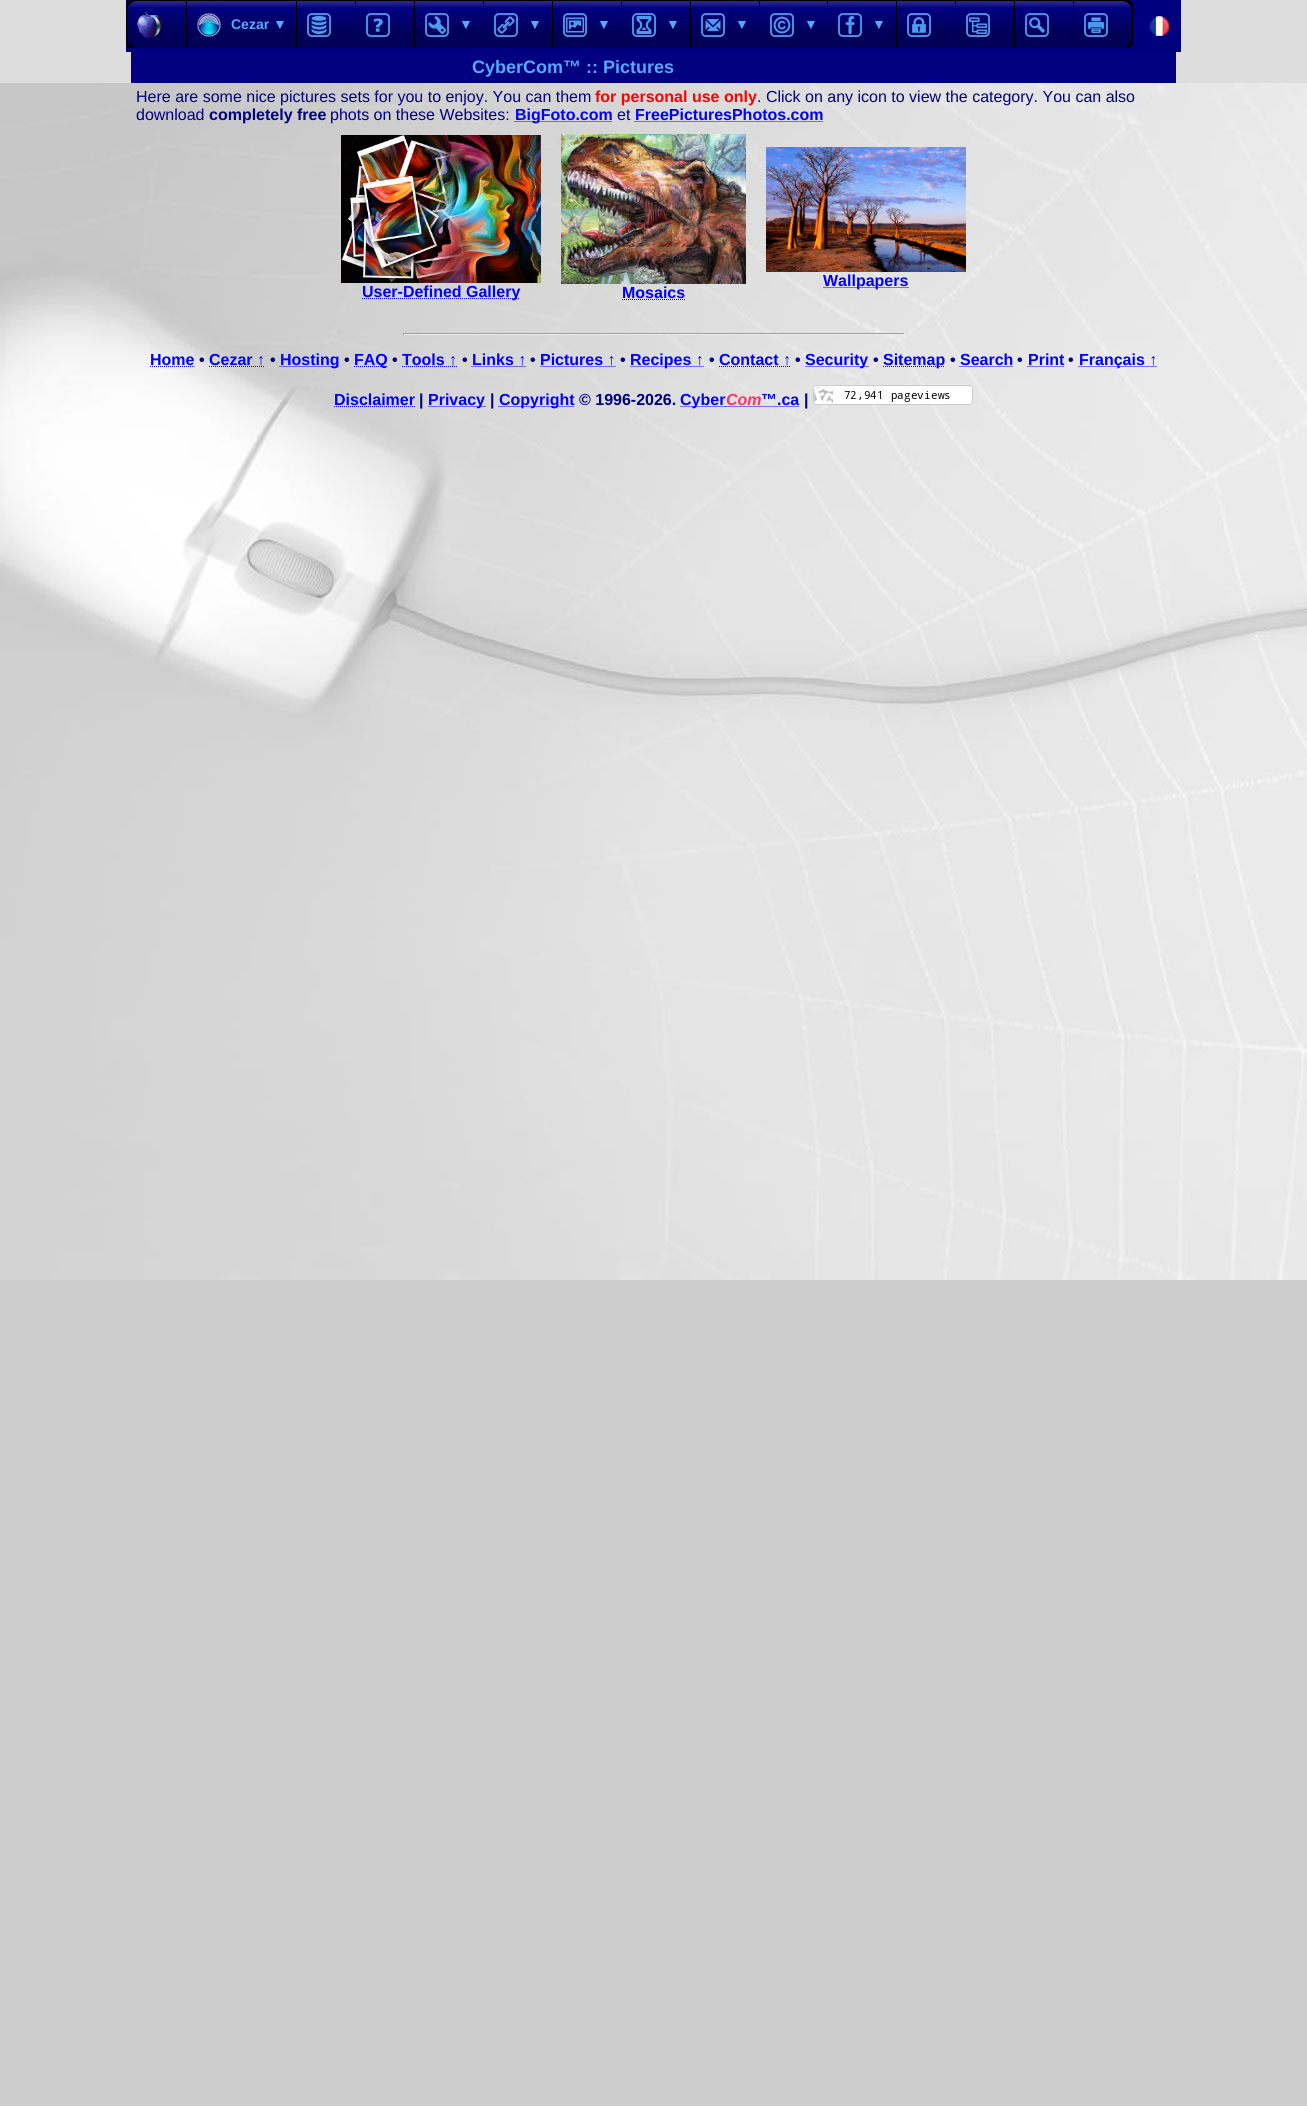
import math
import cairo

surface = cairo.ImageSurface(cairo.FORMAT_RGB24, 1307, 2106)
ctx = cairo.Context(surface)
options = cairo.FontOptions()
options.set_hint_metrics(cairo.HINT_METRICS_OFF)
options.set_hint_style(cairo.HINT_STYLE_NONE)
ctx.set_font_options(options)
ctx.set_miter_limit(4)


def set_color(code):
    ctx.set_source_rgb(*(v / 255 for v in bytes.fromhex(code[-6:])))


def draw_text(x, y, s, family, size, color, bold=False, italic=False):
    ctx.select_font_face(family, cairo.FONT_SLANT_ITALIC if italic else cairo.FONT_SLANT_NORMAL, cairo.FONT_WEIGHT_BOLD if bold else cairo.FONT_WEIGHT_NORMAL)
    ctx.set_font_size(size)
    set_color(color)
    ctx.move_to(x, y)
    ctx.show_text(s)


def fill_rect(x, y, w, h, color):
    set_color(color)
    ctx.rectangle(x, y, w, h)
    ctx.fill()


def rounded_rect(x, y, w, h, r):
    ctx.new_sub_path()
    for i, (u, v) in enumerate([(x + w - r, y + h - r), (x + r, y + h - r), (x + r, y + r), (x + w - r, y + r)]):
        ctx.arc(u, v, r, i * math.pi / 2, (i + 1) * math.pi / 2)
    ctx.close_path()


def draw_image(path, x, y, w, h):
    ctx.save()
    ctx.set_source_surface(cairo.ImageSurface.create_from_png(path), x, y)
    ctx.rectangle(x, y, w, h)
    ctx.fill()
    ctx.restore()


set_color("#cccccc")
ctx.paint()
draw_image("assets/img1.png", 0, 83, 1307, 1197)
fill_rect(0, 0, 1307, 83, "#dddddd")
fill_rect(126, 0, 1055, 52, "#00007f")
set_color("#000000")
rounded_rect(126, 0, 1007, 48, 5)
ctx.fill()
set_color("#00007f")
ctx.new_path()
ctx.move_to(137, 1)
ctx.line_to(186, 1)
ctx.line_to(186, 47)
ctx.line_to(137, 47)
ctx.curve_to(131.5, 47, 127, 42.5, 127, 37)
ctx.line_to(127, 11)
ctx.curve_to(127, 5.5, 131.5, 1, 137, 1)
ctx.close_path()
ctx.fill()
draw_image("assets/img2.png", 127, 1, 59, 46)
draw_image("assets/img3.png", 137, 12, 25, 26)
fill_rect(187, 1, 109, 46, "#00007f")
draw_image("assets/img4.png", 187, 1, 109, 46)
draw_image("assets/img5.png", 197, 13, 24, 24)
draw_text(231, 29, "Cezar ▼", "Liberation Sans", 14, "#55aaff", bold=True)
fill_rect(297, 1, 58, 46, "#00007f")
draw_image("assets/img6.png", 297, 1, 58, 46)
draw_image("assets/img7.png", 307, 13, 24, 24)
fill_rect(356, 1, 58, 46, "#00007f")
draw_image("assets/img6.png", 356, 1, 58, 46)
draw_image("assets/img8.png", 366, 13, 24, 24)
fill_rect(415, 1, 68, 46, "#00007f")
draw_image("assets/img9.png", 415, 1, 68, 46)
draw_image("assets/img10.png", 425, 13, 24, 24)
draw_text(459, 29, "▼", "Liberation Sans", 14, "#55aaff", bold=True)
fill_rect(484, 1, 68, 46, "#00007f")
draw_image("assets/img9.png", 484, 1, 68, 46)
draw_image("assets/img11.png", 494, 13, 24, 24)
draw_text(528, 29, "▼", "Liberation Sans", 14, "#55aaff", bold=True)
fill_rect(553, 1, 68, 46, "#00007f")
draw_image("assets/img9.png", 553, 1, 68, 46)
draw_image("assets/img12.png", 563, 13, 24, 24)
draw_text(597, 29, "▼", "Liberation Sans", 14, "#55aaff", bold=True)
fill_rect(622, 1, 68, 46, "#00007f")
draw_image("assets/img9.png", 622, 1, 68, 46)
draw_image("assets/img13.png", 632, 13, 24, 24)
draw_text(666, 29, "▼", "Liberation Sans", 14, "#55aaff", bold=True)
fill_rect(691, 1, 68, 46, "#00007f")
draw_image("assets/img9.png", 691, 1, 68, 46)
draw_image("assets/img14.png", 701, 13, 24, 24)
draw_text(735, 29, "▼", "Liberation Sans", 14, "#55aaff", bold=True)
fill_rect(760, 1, 67, 46, "#00007f")
draw_image("assets/img15.png", 760, 1, 67, 46)
draw_image("assets/img16.png", 770, 13, 24, 24)
draw_text(804, 29, "▼", "Liberation Sans", 14, "#55aaff", bold=True)
fill_rect(828, 1, 68, 46, "#00007f")
draw_image("assets/img9.png", 828, 1, 68, 46)
draw_image("assets/img17.png", 838, 13, 24, 24)
draw_text(872, 29, "▼", "Liberation Sans", 14, "#55aaff", bold=True)
fill_rect(897, 1, 58, 46, "#00007f")
draw_image("assets/img6.png", 897, 1, 58, 46)
draw_image("assets/img18.png", 907, 13, 24, 24)
fill_rect(956, 1, 58, 46, "#00007f")
draw_image("assets/img6.png", 956, 1, 58, 46)
draw_image("assets/img19.png", 966, 13, 24, 24)
fill_rect(1015, 1, 58, 46, "#00007f")
draw_image("assets/img6.png", 1015, 1, 58, 46)
draw_image("assets/img20.png", 1025, 13, 24, 24)
ctx.new_path()
ctx.move_to(1074, 1)
ctx.line_to(1122, 1)
ctx.curve_to(1127.5, 1, 1132, 5.5, 1132, 11)
ctx.line_to(1132, 37)
ctx.curve_to(1132, 42.5, 1127.5, 47, 1122, 47)
ctx.line_to(1074, 47)
ctx.close_path()
ctx.fill()
draw_image("assets/img21.png", 1074, 1, 58, 46)
draw_image("assets/img22.png", 1084, 13, 24, 24)
draw_image("assets/img23.png", 1149, 16, 20, 20)
fill_rect(131, 52, 1045, 31, "#000080")
draw_text(472, 73, "CyberCom™ :: Pictures", "Liberation Sans", 18, "#55aaff", bold=True)
draw_text(136, 102, "Here are some nice pictures sets for you to enjoy. You can them", "Liberation Sans", 16, "#000080")
draw_text(595, 102, "for personal use only", "Liberation Sans", 16, "#ff0000", bold=True)
draw_text(757, 102, ". Click on any icon to view the category. You can also", "Liberation Sans", 16, "#000080")
draw_text(136, 120, "download", "Liberation Sans", 16, "#000080")
draw_text(209, 120, "completely free", "Liberation Sans", 16, "#000080", bold=True)
draw_text(330, 120, "phots on these Websites:", "Liberation Sans", 16, "#000080")
ctx.new_path()
ctx.move_to(514.5, 121.5)
ctx.line_to(612.5, 121.5)
set_color("#0000ff")
ctx.set_line_width(1)
ctx.set_dash([1, 1])
ctx.stroke()
draw_text(515, 120, "BigFoto.com", "Liberation Sans", 16, "#0000ff", bold=True)
draw_text(617, 120, "et", "Liberation Sans", 16, "#000080")
draw_text(635, 120, "FreePicturesPhotos.com", "Liberation Sans", 16, "#0000ff", bold=True)
ctx.new_path()
ctx.move_to(634.5, 121.5)
ctx.line_to(823, 121.5)
ctx.stroke()
draw_image("assets/img24.png", 766, 147, 200, 125)
ctx.new_path()
ctx.move_to(823.5, 287.5)
ctx.line_to(908.5, 287.5)
ctx.stroke()
draw_text(823, 286, "Wallpapers", "Liberation Sans", 16, "#0000ff", bold=True)
draw_image("assets/img25.png", 341, 135, 200, 148)
ctx.new_path()
ctx.move_to(362, 298.5)
ctx.line_to(520, 298.5)
ctx.stroke()
draw_text(362, 297, "User-Defined Gallery", "Liberation Sans", 16, "#0000ff", bold=True)
draw_image("assets/img26.png", 561, 134, 185, 150)
draw_text(622, 298, "Mosaics", "Liberation Sans", 16, "#0000ff", bold=True)
ctx.new_path()
ctx.move_to(622, 299.5)
ctx.line_to(685, 299.5)
ctx.stroke()
fill_rect(403, 333, 502, 1, "#9f9f9f")
fill_rect(904, 333, 1, 2, "#eeeeee")
fill_rect(403, 334, 502, 1, "#eeeeee")
fill_rect(403, 333, 1, 2, "#9f9f9f")
draw_text(150, 365, "Home", "Liberation Sans", 16, "#0000ff", bold=True)
ctx.new_path()
ctx.move_to(150, 366.5)
ctx.line_to(194.5, 366.5)
ctx.stroke()
draw_text(199, 365, "•", "Liberation Sans", 16, "#000080", bold=True)
draw_text(209, 365, "Cezar ↑", "Liberation Sans", 16, "#0000ff", bold=True)
ctx.new_path()
ctx.move_to(209, 366.5)
ctx.line_to(265, 366.5)
ctx.stroke()
draw_text(270, 365, "•", "Liberation Sans", 16, "#000080", bold=True)
ctx.new_path()
ctx.move_to(279.5, 366.5)
ctx.line_to(339, 366.5)
set_color("#0000ff")
ctx.stroke()
draw_text(280, 365, "Hosting", "Liberation Sans", 16, "#0000ff", bold=True)
draw_text(344, 365, "•", "Liberation Sans", 16, "#000080", bold=True)
ctx.new_path()
ctx.move_to(354, 366.5)
ctx.line_to(387.5, 366.5)
set_color("#0000ff")
ctx.stroke()
draw_text(354, 365, "FAQ", "Liberation Sans", 16, "#0000ff", bold=True)
draw_text(392, 365, "•", "Liberation Sans", 16, "#000080", bold=True)
draw_text(402, 365, "Tools ↑", "Liberation Sans", 16, "#0000ff", bold=True)
ctx.new_path()
ctx.move_to(402, 366.5)
ctx.line_to(457, 366.5)
ctx.stroke()
draw_text(462, 365, "•", "Liberation Sans", 16, "#000080", bold=True)
draw_text(472, 365, "Links ↑", "Liberation Sans", 16, "#0000ff", bold=True)
ctx.new_path()
ctx.move_to(471.5, 366.5)
ctx.line_to(526, 366.5)
ctx.stroke()
draw_text(530, 365, "•", "Liberation Sans", 16, "#000080", bold=True)
draw_text(540, 365, "Pictures ↑", "Liberation Sans", 16, "#0000ff", bold=True)
ctx.new_path()
ctx.move_to(540.5, 366.5)
ctx.line_to(616, 366.5)
ctx.stroke()
draw_text(620, 365, "•", "Liberation Sans", 16, "#000080", bold=True)
ctx.new_path()
ctx.move_to(630.5, 366.5)
ctx.line_to(704.5, 366.5)
set_color("#0000ff")
ctx.stroke()
draw_text(630, 365, "Recipes ↑", "Liberation Sans", 16, "#0000ff", bold=True)
draw_text(709, 365, "•", "Liberation Sans", 16, "#000080", bold=True)
draw_text(719, 365, "Contact ↑", "Liberation Sans", 16, "#0000ff", bold=True)
ctx.new_path()
ctx.move_to(719, 366.5)
ctx.line_to(791, 366.5)
ctx.stroke()
draw_text(795, 365, "•", "Liberation Sans", 16, "#000080", bold=True)
ctx.new_path()
ctx.move_to(805.5, 366.5)
ctx.line_to(868.5, 366.5)
set_color("#0000ff")
ctx.stroke()
draw_text(805, 365, "Security", "Liberation Sans", 16, "#0000ff", bold=True)
draw_text(873, 365, "•", "Liberation Sans", 16, "#000080", bold=True)
ctx.new_path()
ctx.move_to(883, 366.5)
ctx.line_to(945, 366.5)
set_color("#0000ff")
ctx.stroke()
draw_text(883, 365, "Sitemap", "Liberation Sans", 16, "#0000ff", bold=True)
draw_text(950, 365, "•", "Liberation Sans", 16, "#000080", bold=True)
draw_text(960, 365, "Search", "Liberation Sans", 16, "#0000ff", bold=True)
ctx.new_path()
ctx.move_to(959.5, 366.5)
ctx.line_to(1013, 366.5)
ctx.stroke()
draw_text(1017, 365, "•", "Liberation Sans", 16, "#000080", bold=True)
draw_text(1028, 365, "Print", "Liberation Sans", 16, "#0000ff", bold=True)
ctx.new_path()
ctx.move_to(1027.5, 366.5)
ctx.line_to(1064, 366.5)
ctx.stroke()
draw_text(1068, 365, "•", "Liberation Sans", 16, "#000080", bold=True)
ctx.new_path()
ctx.move_to(1078.5, 366.5)
ctx.line_to(1157, 366.5)
set_color("#0000ff")
ctx.stroke()
draw_text(1079, 365, "Français ↑", "Liberation Sans", 16, "#0000ff", bold=True)
draw_text(334, 405, "Disclaimer", "Liberation Sans", 16, "#0000ff", bold=True)
ctx.new_path()
ctx.move_to(334, 406.5)
ctx.line_to(415, 406.5)
ctx.stroke()
draw_text(419, 405, "|", "Liberation Sans", 16, "#000080", bold=True)
ctx.new_path()
ctx.move_to(428.5, 406.5)
ctx.line_to(485.5, 406.5)
set_color("#0000ff")
ctx.stroke()
draw_text(428, 405, "Privacy", "Liberation Sans", 16, "#0000ff", bold=True)
draw_text(490, 405, "|", "Liberation Sans", 16, "#000080", bold=True)
ctx.new_path()
ctx.move_to(498.5, 406.5)
ctx.line_to(574, 406.5)
set_color("#0000ff")
ctx.stroke()
draw_text(499, 405, "Copyright", "Liberation Sans", 16, "#0000ff", bold=True)
draw_text(579, 405, "© 1996-2026.", "Liberation Sans", 16, "#000080", bold=True)
ctx.new_path()
ctx.move_to(680.5, 406.5)
ctx.line_to(725.5, 406.5)
set_color("#0000ff")
ctx.stroke()
draw_text(680, 405, "Cyber", "Liberation Sans", 16, "#0000ff", bold=True)
ctx.new_path()
ctx.move_to(725.5, 406.5)
ctx.line_to(761.5, 406.5)
ctx.stroke()
draw_text(726, 405, "Com", "Liberation Sans", 16, "#ff3366", bold=True, italic=True)
draw_text(761, 405, "™.ca", "Liberation Sans", 16, "#0000ff", bold=True)
ctx.new_path()
ctx.move_to(761.5, 406.5)
ctx.line_to(799.5, 406.5)
ctx.stroke()
draw_text(804, 405, "|", "Liberation Sans", 16, "#000080", bold=True)
draw_image("assets/img27.png", 813, 385, 160, 20)
surface.write_to_png("output.png")
